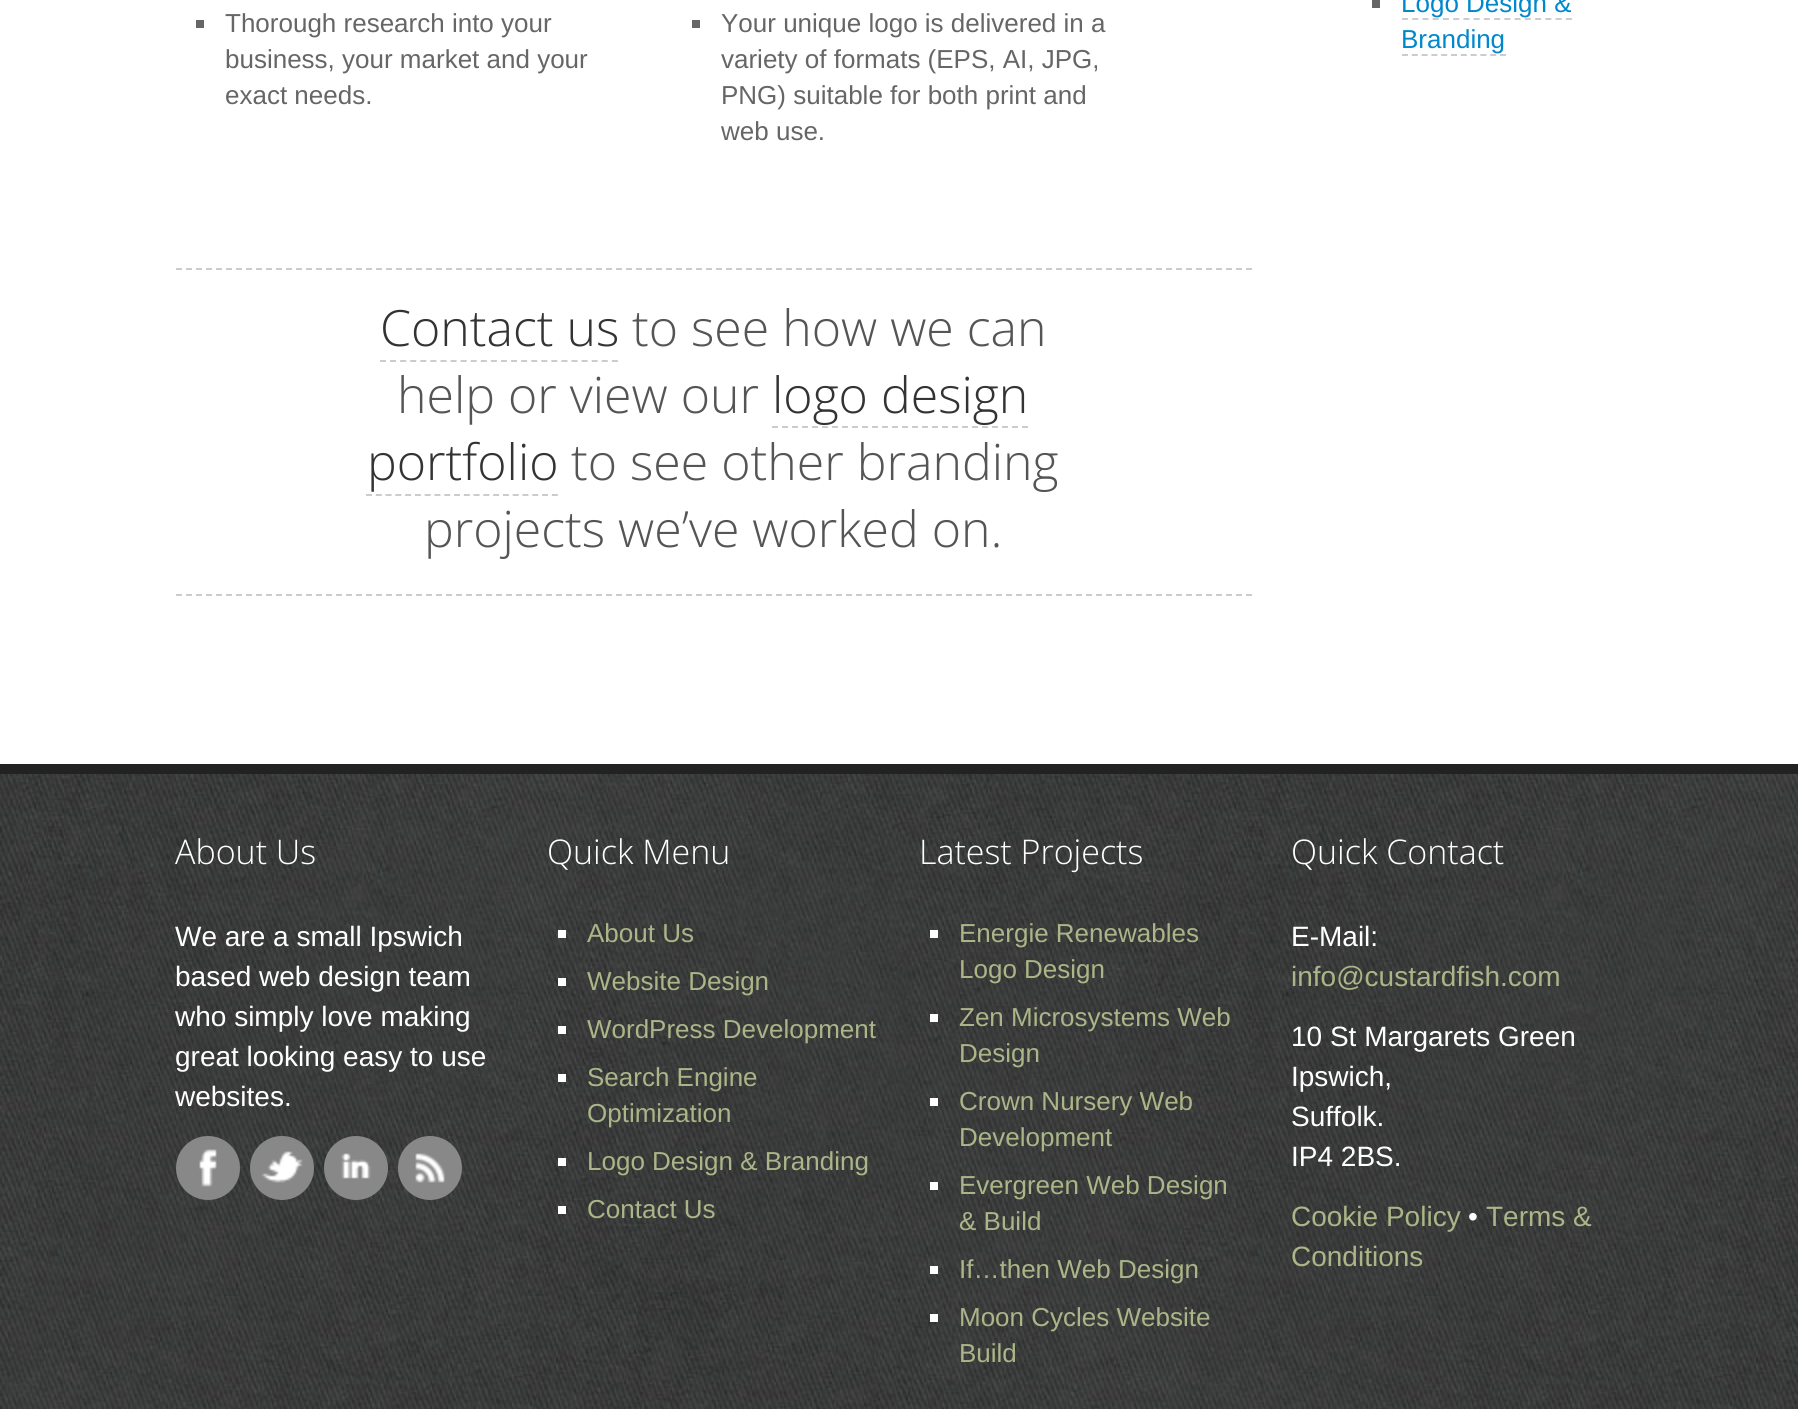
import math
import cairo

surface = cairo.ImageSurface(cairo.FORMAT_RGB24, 1798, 1409)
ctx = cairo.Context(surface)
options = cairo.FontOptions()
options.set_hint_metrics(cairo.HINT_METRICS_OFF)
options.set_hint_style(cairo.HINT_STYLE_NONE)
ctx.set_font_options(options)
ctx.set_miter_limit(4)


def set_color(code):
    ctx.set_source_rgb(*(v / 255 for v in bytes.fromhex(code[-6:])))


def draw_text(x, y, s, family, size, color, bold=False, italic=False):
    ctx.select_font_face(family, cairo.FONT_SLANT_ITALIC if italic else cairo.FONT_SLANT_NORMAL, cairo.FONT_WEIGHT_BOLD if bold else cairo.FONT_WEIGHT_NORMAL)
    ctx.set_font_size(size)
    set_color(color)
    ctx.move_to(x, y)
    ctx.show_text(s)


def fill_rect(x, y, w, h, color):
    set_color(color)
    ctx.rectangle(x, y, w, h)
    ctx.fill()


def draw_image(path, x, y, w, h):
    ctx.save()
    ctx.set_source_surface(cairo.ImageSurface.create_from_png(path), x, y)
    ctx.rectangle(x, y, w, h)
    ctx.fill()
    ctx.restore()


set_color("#ffffff")
ctx.paint()
fill_rect(196, 20, 8, 8, "#666666")
draw_text(225, 32, "Thorough research into your", "Liberation Sans", 26, "#666666")
draw_text(225, 68, "business, your market and your", "Liberation Sans", 26, "#666666")
draw_text(225, 104, "exact needs.", "Liberation Sans", 26, "#666666")
fill_rect(692, 20, 8, 8, "#666666")
draw_text(721, 32, "Your unique logo is delivered in a", "Liberation Sans", 26, "#666666")
draw_text(721, 68, "variety of formats (EPS, AI, JPG,", "Liberation Sans", 26, "#666666")
draw_text(721, 104, "PNG) suitable for both print and", "Liberation Sans", 26, "#666666")
draw_text(721, 140, "web use.", "Liberation Sans", 26, "#666666")
ctx.new_path()
ctx.move_to(176, 269)
ctx.line_to(1252, 269)
set_color("#cccccc")
ctx.set_dash([6, 4])
ctx.stroke()
ctx.new_path()
ctx.move_to(176, 595)
ctx.line_to(1252, 595)
ctx.stroke()
draw_text(380, 346, "Contact us", "Open Sans Light", 50, "#333333")
ctx.new_path()
ctx.move_to(380, 361)
ctx.line_to(618, 361)
set_color("#cccccc")
ctx.set_dash([6, 4.08])
ctx.stroke()
draw_text(632, 346, "to see how we can", "Open Sans Light", 50, "#555555")
draw_text(397, 413, "help or view our", "Open Sans Light", 50, "#555555")
draw_text(772, 413, "logo design", "Open Sans Light", 50, "#333333")
ctx.new_path()
ctx.move_to(772, 427)
ctx.line_to(1028, 427)
set_color("#cccccc")
ctx.set_dash([6, 4])
ctx.stroke()
draw_text(367, 480, "portfolio", "Open Sans Light", 50, "#333333")
ctx.new_path()
ctx.move_to(366, 495)
ctx.line_to(558, 495)
set_color("#cccccc")
ctx.set_dash([6, 3.78])
ctx.stroke()
draw_text(571, 480, "to see other branding", "Open Sans Light", 50, "#555555")
draw_text(424, 547, "projects we’ve worked on.", "Open Sans Light", 50, "#555555")
fill_rect(1372, 0, 8, 8, "#666666")
draw_text(1401, 12, "Logo Design &", "Liberation Sans", 26, "#0088cc")
ctx.new_path()
ctx.move_to(1402, 19)
ctx.line_to(1572, 19)
set_color("#cccccc")
ctx.set_dash([6, 4.24])
ctx.stroke()
draw_text(1401, 48, "Branding", "Liberation Sans", 26, "#0088cc")
ctx.new_path()
ctx.move_to(1402, 55)
ctx.line_to(1506, 55)
set_color("#cccccc")
ctx.set_dash([6, 3.8])
ctx.stroke()
draw_image("assets/img1.png", 0, 774, 1798, 635)
fill_rect(0, 764, 1798, 10, "#222222")
draw_text(175, 864, "About Us", "Open Sans Light", 34, "#ffffff")
draw_text(175, 946, "We are a small Ipswich", "Liberation Sans", 28, "#ffffff")
draw_text(175, 986, "based web design team", "Liberation Sans", 28, "#ffffff")
draw_text(175, 1026, "who simply love making", "Liberation Sans", 28, "#ffffff")
draw_text(175, 1066, "great looking easy to use", "Liberation Sans", 28, "#ffffff")
draw_text(175, 1106, "websites.", "Liberation Sans", 28, "#ffffff")
set_color("#888888")
ctx.new_path()
ctx.arc(208, 1168, 32, 0, 2 * math.pi)
ctx.fill()
draw_image("assets/img2.png", 199, 1149, 18, 38)
ctx.arc(282, 1168, 32, 0, 2 * math.pi)
ctx.fill()
draw_image("assets/img3.png", 261, 1151, 42, 32)
ctx.arc(356, 1168, 32, 0, 2 * math.pi)
ctx.fill()
draw_image("assets/img4.png", 341, 1153, 30, 26)
ctx.arc(430, 1168, 32, 0, 2 * math.pi)
ctx.fill()
draw_image("assets/img5.png", 415, 1153, 30, 30)
draw_text(547, 864, "Quick Menu", "Open Sans Light", 34, "#ffffff")
fill_rect(558, 930, 8, 8, "#ffffff")
draw_text(587, 942, "About Us", "Liberation Sans", 26, "#abb587")
fill_rect(558, 978, 8, 8, "#ffffff")
draw_text(587, 990, "Website Design", "Liberation Sans", 26, "#abb587")
fill_rect(558, 1026, 8, 8, "#ffffff")
draw_text(587, 1038, "WordPress Development", "Liberation Sans", 26, "#abb587")
fill_rect(558, 1074, 8, 8, "#ffffff")
draw_text(587, 1086, "Search Engine", "Liberation Sans", 26, "#abb587")
draw_text(587, 1122, "Optimization", "Liberation Sans", 26, "#abb587")
fill_rect(558, 1158, 8, 8, "#ffffff")
draw_text(587, 1170, "Logo Design & Branding", "Liberation Sans", 26, "#abb587")
fill_rect(558, 1206, 8, 8, "#ffffff")
draw_text(587, 1218, "Contact Us", "Liberation Sans", 26, "#abb587")
draw_text(919, 864, "Latest Projects", "Open Sans Light", 34, "#ffffff")
fill_rect(930, 930, 8, 8, "#ffffff")
draw_text(959, 942, "Energie Renewables", "Liberation Sans", 26, "#abb587")
draw_text(959, 978, "Logo Design", "Liberation Sans", 26, "#abb587")
fill_rect(930, 1014, 8, 8, "#ffffff")
draw_text(959, 1026, "Zen Microsystems Web", "Liberation Sans", 26, "#abb587")
draw_text(959, 1062, "Design", "Liberation Sans", 26, "#abb587")
fill_rect(930, 1098, 8, 8, "#ffffff")
draw_text(959, 1110, "Crown Nursery Web", "Liberation Sans", 26, "#abb587")
draw_text(959, 1146, "Development", "Liberation Sans", 26, "#abb587")
fill_rect(930, 1182, 8, 8, "#ffffff")
draw_text(959, 1194, "Evergreen Web Design", "Liberation Sans", 26, "#abb587")
draw_text(959, 1230, "& Build", "Liberation Sans", 26, "#abb587")
fill_rect(930, 1266, 8, 8, "#ffffff")
draw_text(959, 1278, "If…then Web Design", "Liberation Sans", 26, "#abb587")
fill_rect(930, 1314, 8, 8, "#ffffff")
draw_text(959, 1326, "Moon Cycles Website", "Liberation Sans", 26, "#abb587")
draw_text(959, 1362, "Build", "Liberation Sans", 26, "#abb587")
draw_text(1291, 864, "Quick Contact", "Open Sans Light", 34, "#ffffff")
draw_text(1291, 946, "E-Mail:", "Liberation Sans", 28, "#ffffff")
draw_text(1291, 986, "info@custardfish.com", "Liberation Sans", 28, "#abb587")
draw_text(1291, 1046, "10 St Margarets Green", "Liberation Sans", 28, "#ffffff")
draw_text(1291, 1086, "Ipswich,", "Liberation Sans", 28, "#ffffff")
draw_text(1291, 1126, "Suffolk.", "Liberation Sans", 28, "#ffffff")
draw_text(1291, 1166, "IP4 2BS.", "Liberation Sans", 28, "#ffffff")
draw_text(1291, 1226, "Cookie Policy", "Liberation Sans", 28, "#abb587")
draw_text(1468, 1226, "•", "Liberation Sans", 28, "#ffffff")
draw_text(1486, 1226, "Terms &", "Liberation Sans", 28, "#abb587")
draw_text(1291, 1266, "Conditions", "Liberation Sans", 28, "#abb587")
surface.write_to_png("output.png")
